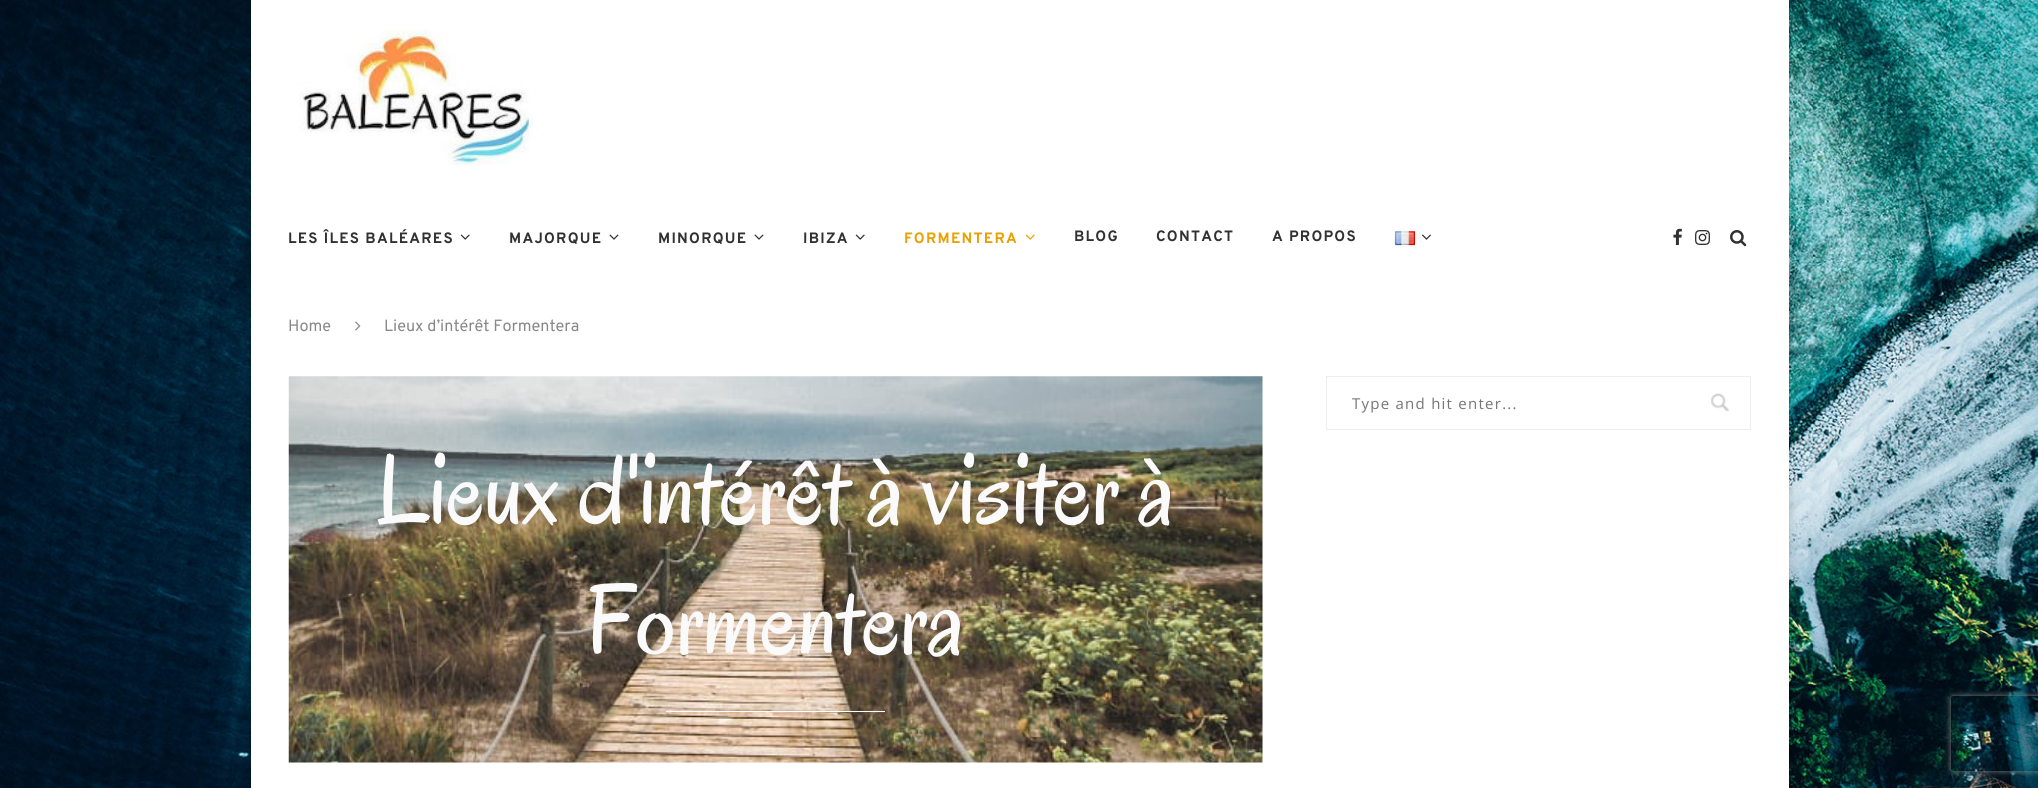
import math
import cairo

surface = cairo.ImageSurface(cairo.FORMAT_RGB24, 2038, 788)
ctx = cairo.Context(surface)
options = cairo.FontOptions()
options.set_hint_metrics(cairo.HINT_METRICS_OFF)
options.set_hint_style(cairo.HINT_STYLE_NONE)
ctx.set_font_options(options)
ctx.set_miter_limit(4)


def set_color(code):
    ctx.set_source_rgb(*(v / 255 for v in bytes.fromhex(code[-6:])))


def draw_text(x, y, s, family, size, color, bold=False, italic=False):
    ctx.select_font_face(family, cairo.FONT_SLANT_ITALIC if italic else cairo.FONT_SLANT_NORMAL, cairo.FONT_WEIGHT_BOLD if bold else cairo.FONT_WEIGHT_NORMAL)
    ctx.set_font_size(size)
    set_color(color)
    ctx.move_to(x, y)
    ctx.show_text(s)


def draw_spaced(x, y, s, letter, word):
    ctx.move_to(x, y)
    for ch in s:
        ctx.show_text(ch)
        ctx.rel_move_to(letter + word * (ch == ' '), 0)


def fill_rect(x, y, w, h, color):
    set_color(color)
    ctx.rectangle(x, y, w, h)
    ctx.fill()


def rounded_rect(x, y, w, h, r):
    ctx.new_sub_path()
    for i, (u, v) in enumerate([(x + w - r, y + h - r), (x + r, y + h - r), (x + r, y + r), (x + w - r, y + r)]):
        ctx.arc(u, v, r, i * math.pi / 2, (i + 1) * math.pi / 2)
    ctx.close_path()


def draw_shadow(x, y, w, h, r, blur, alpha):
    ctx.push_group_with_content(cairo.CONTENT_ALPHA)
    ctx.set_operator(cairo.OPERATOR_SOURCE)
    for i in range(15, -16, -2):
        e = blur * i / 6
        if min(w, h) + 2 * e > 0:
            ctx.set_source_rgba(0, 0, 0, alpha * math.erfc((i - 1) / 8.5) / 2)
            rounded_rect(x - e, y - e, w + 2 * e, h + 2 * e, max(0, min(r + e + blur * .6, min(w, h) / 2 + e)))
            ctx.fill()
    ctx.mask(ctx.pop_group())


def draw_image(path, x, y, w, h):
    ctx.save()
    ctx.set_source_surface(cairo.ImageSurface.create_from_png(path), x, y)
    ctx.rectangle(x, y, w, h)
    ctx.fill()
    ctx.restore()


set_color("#ffffff")
ctx.paint()
draw_image("assets/img1.png", 0, 0, 2038, 788)
set_color("#000000")
draw_shadow(251, 6, 1538, 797, 0, 5, 0.2)
fill_rect(251, 0, 1538, 788, "#ffffff")
draw_image("assets/img2.png", 299, 29, 234, 138)
ctx.select_font_face("Overpass", cairo.FONT_SLANT_NORMAL, cairo.FONT_WEIGHT_BOLD)
ctx.set_font_size(15)
set_color("#313131")
draw_spaced(288, 243, "LES ÎLES BALÉARES", 1.25, 0)
draw_image("assets/img3.png", 460, 234, 10, 6)
draw_spaced(509, 243, "MAJORQUE", 1.25, 0)
draw_image("assets/img4.png", 609, 234, 10, 6)
draw_spaced(658, 243, "MINORQUE", 1.25, 0)
draw_image("assets/img4.png", 754, 234, 10, 6)
draw_spaced(803, 243, "IBIZA", 1.25, 0)
draw_image("assets/img3.png", 855, 234, 10, 6)
set_color("#eaa000")
draw_spaced(904, 243, "FORMENTERA", 1.25, 0)
draw_image("assets/img5.png", 1025, 234, 10, 6)
set_color("#313131")
draw_spaced(1074, 241, "BLOG", 1.25, 0)
draw_spaced(1156, 241, "CONTACT", 1.25, 0)
draw_spaced(1272, 241, "A PROPOS", 1.25, 0)
draw_image("assets/img6.png", 1394, 231, 21, 15)
draw_image("assets/img7.png", 1422, 234, 9, 6)
draw_image("assets/img8.png", 1673, 228, 9, 17)
draw_image("assets/img9.png", 1695, 230, 15, 15)
draw_image("assets/img10.png", 1730, 230, 17, 17)
draw_text(288, 331, "Home", "Overpass", 16.25, "#888888")
draw_image("assets/img11.png", 355, 321, 6, 10)
draw_text(384, 331, "Lieux d’intérêt Formentera", "Overpass", 16.25, "#888888")
draw_image("assets/img12.png", 1711, 393, 18, 19)
ctx.rectangle(1326.5, 376.5, 424, 53)
set_color("#eeeeee")
ctx.set_line_width(1)
ctx.stroke()
ctx.select_font_face("Open Sans")
ctx.set_font_size(15)
set_color("#757575")
draw_spaced(1352, 409, "Type and hit enter...", 1.25, 0)
draw_image("assets/img13.png", 288, 376, 975, 387)
draw_text(376, 523, "Lieux d'intérêt à visiter à", "Oregano", 100, "#fafafa")
draw_text(586, 653, "Formentera", "Oregano", 100, "#fafafa")
fill_rect(666, 711, 219, 1, "#ffffff")
ctx.save()
ctx.set_fill_rule(cairo.FILL_RULE_EVEN_ODD)
ctx.new_path()
ctx.move_to(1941, 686)
ctx.line_to(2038, 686)
ctx.line_to(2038, 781)
ctx.line_to(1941, 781)
ctx.close_path()
ctx.move_to(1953.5, 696)
ctx.line_to(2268.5, 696)
ctx.curve_to(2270, 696, 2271, 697, 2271, 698.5)
ctx.line_to(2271, 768.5)
ctx.curve_to(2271, 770, 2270, 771, 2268.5, 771)
ctx.line_to(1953.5, 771)
ctx.curve_to(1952, 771, 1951, 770, 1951, 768.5)
ctx.line_to(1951, 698.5)
ctx.curve_to(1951, 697, 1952, 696, 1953.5, 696)
ctx.close_path()
ctx.clip()
set_color("#808080")
draw_shadow(1951, 696, 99, 75, 2.5, 3, 1)
ctx.restore()
surface.write_to_png("output.png")
